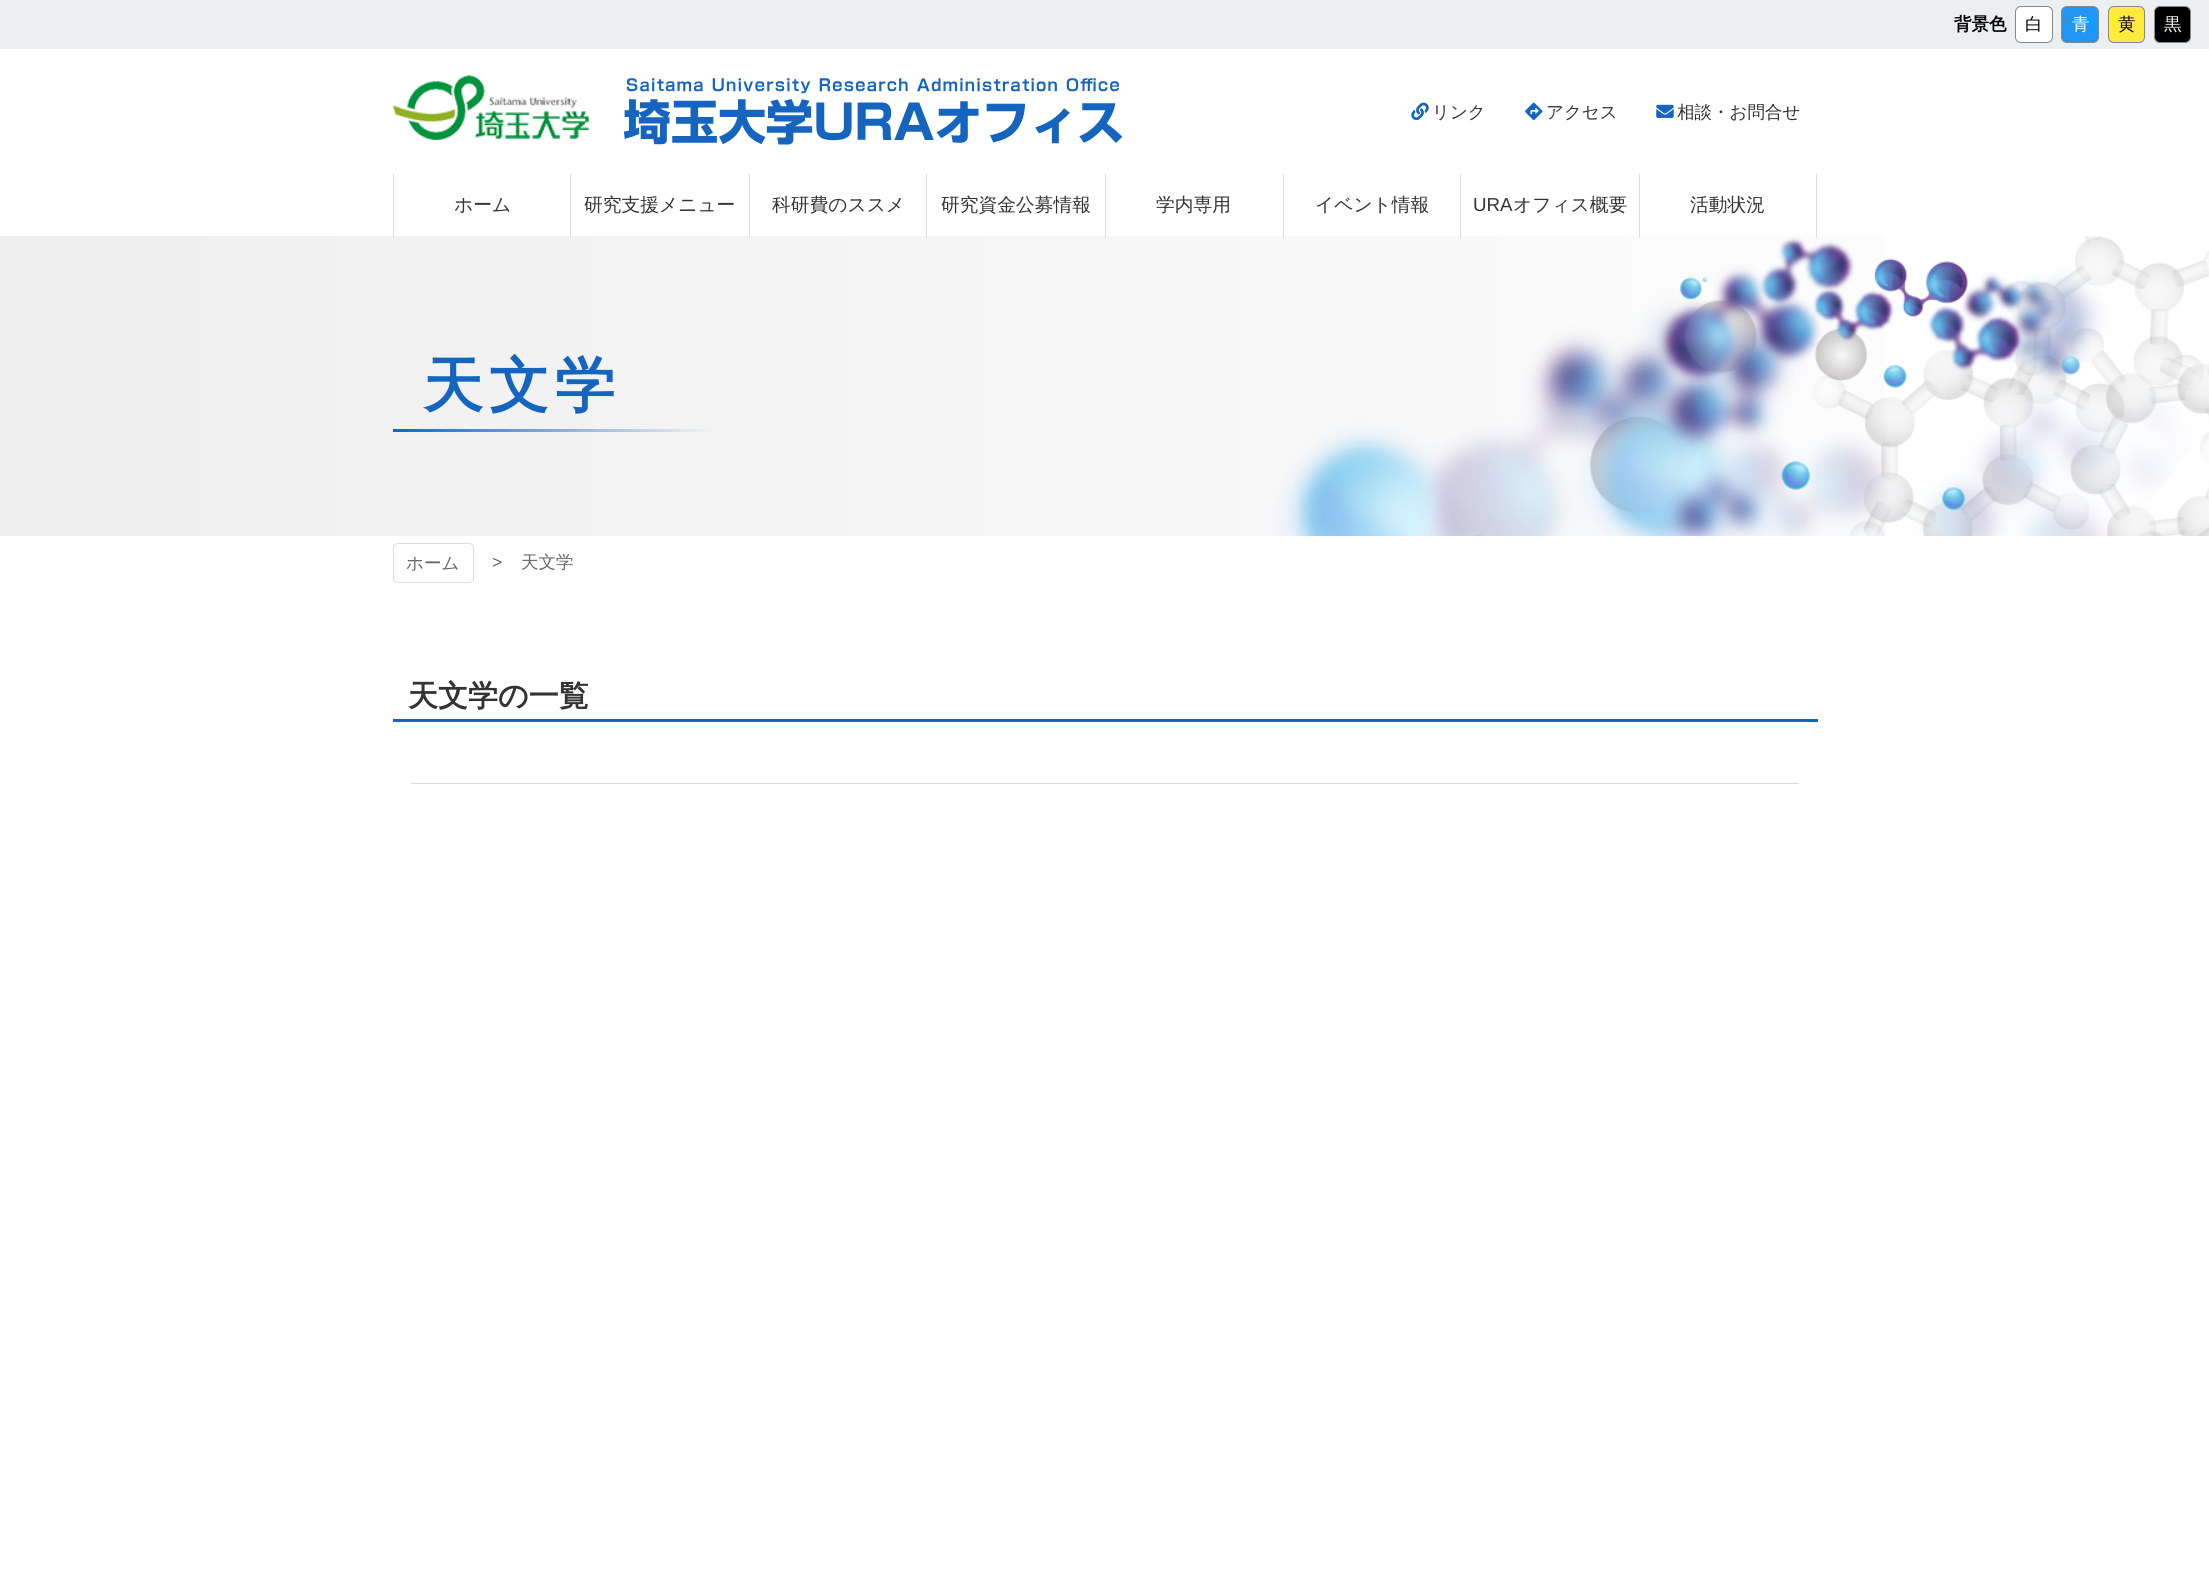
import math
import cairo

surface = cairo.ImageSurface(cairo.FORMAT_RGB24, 2209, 1586)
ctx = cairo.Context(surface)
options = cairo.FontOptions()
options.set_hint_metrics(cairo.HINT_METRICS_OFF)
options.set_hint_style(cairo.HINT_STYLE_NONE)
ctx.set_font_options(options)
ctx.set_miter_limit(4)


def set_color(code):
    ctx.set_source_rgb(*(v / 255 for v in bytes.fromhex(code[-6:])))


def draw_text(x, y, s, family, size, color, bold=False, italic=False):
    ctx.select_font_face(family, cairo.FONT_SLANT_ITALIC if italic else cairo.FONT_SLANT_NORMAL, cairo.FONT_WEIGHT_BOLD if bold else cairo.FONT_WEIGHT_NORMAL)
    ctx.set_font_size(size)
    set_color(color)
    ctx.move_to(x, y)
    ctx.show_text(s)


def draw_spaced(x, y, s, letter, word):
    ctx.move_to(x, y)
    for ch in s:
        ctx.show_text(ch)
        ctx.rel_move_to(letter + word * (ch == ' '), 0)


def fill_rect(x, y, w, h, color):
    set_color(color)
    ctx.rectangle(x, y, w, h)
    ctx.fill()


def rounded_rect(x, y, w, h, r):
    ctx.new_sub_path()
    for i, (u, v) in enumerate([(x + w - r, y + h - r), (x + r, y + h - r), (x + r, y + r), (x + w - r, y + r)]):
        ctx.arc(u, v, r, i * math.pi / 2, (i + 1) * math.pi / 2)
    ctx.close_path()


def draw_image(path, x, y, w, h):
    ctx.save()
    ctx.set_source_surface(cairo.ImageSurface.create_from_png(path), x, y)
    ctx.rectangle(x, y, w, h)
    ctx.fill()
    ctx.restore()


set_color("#ffffff")
ctx.paint()
fill_rect(0, 0, 2209, 49, "#eceeef")
draw_text(1954, 30, "背景色", "WenQuanYi Zen Hei", 17.5, "#000000", bold=True)
set_color("#ffffff")
rounded_rect(2015.5, 6.5, 37, 36, 5.5)
ctx.fill_preserve()
set_color("#818a91")
ctx.set_line_width(1)
ctx.stroke()
draw_text(2025, 30, "白", "WenQuanYi Zen Hei Medium", 17.5, "#000000")
set_color("#2196f3")
rounded_rect(2061.5, 6.5, 37, 36, 5.5)
ctx.fill_preserve()
set_color("#818a91")
ctx.stroke()
draw_text(2072, 30, "青", "WenQuanYi Zen Hei Medium", 17.5, "#ffffff")
set_color("#ffeb3b")
rounded_rect(2108.5, 6.5, 36, 36, 5.5)
ctx.fill_preserve()
set_color("#818a91")
ctx.stroke()
draw_text(2118, 30, "黄", "WenQuanYi Zen Hei Medium", 17.5, "#000000")
rounded_rect(2154.5, 6.5, 36, 36, 5.5)
ctx.fill_preserve()
set_color("#818a91")
ctx.stroke()
draw_text(2164, 30, "黒", "WenQuanYi Zen Hei Medium", 17.5, "#ffffff")
draw_image("assets/img1.png", 392, 75, 197, 65)
draw_image("assets/img2.png", 624, 78, 499, 67)
draw_image("assets/img3.png", 1411, 102, 18, 19)
draw_text(1432, 118, "リンク", "WenQuanYi Zen Hei Medium", 17.5, "#333333")
draw_image("assets/img4.png", 1525, 102, 18, 19)
draw_text(1546, 118, "アクセス", "WenQuanYi Zen Hei Medium", 17.5, "#333333")
draw_image("assets/img5.png", 1656, 104, 18, 14)
draw_text(1677, 118, "相談・お問合せ", "WenQuanYi Zen Hei Medium", 17.5, "#333333")
gradient = cairo.LinearGradient(0, 293, 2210, 292)
gradient.add_color_stop_rgba(0, 0.933, 0.933, 0.933, 1)
gradient.add_color_stop_rgba(1, 1, 1, 1, 1)
ctx.set_source(gradient)
ctx.rectangle(0, 236, 1885, 300)
ctx.fill()
fill_rect(393, 174, 1, 64, "#dddddd")
draw_text(454, 211, "ホーム", "WenQuanYi Zen Hei Medium", 18.75, "#333333")
fill_rect(570, 174, 1, 64, "#dddddd")
draw_text(584, 211, "研究支援メニュー", "WenQuanYi Zen Hei Medium", 18.75, "#333333")
fill_rect(749, 174, 1, 64, "#dddddd")
draw_text(772, 211, "科研費のススメ", "WenQuanYi Zen Hei Medium", 18.75, "#333333")
fill_rect(926, 174, 1, 64, "#dddddd")
draw_text(941, 211, "研究資金公募情報", "WenQuanYi Zen Hei Medium", 18.75, "#333333")
fill_rect(1105, 174, 1, 64, "#dddddd")
draw_text(1156, 211, "学内専用", "WenQuanYi Zen Hei Medium", 18.75, "#333333")
draw_image("assets/img6.png", 1271, 236, 938, 301)
fill_rect(1283, 174, 1, 64, "#dddddd")
draw_text(1315, 211, "イベント情報", "WenQuanYi Zen Hei Medium", 18.75, "#333333")
fill_rect(1460, 174, 1, 64, "#dddddd")
draw_text(1473, 211, "URA", "Liberation Sans", 18.75, "#333333")
draw_text(1513, 211, "オフィス概要", "WenQuanYi Zen Hei Medium", 18.75, "#333333")
fill_rect(1816, 174, 1, 64, "#dddddd")
fill_rect(1639, 174, 1, 64, "#dddddd")
draw_text(1690, 211, "活動状況", "WenQuanYi Zen Hei Medium", 18.75, "#333333")
ctx.select_font_face("WenQuanYi Zen Hei", cairo.FONT_SLANT_NORMAL, cairo.FONT_WEIGHT_BOLD)
ctx.set_font_size(60)
set_color("#1565c0")
draw_spaced(423, 406, "天文学", 6, 0)
gradient = cairo.LinearGradient(393, 430, 711, 430)
gradient.add_color_stop_rgba(0, 0.082, 0.396, 0.753, 1)
gradient.add_color_stop_rgba(1, 0.949, 0.949, 0.949, 1)
ctx.set_source(gradient)
ctx.rectangle(393, 429, 318, 3)
ctx.fill()
rounded_rect(393.5, 543.5, 80, 39, 4.5)
set_color("#dddddd")
ctx.stroke()
draw_text(406, 569, "ホーム", "WenQuanYi Zen Hei Medium", 17.5, "#666666")
draw_text(492, 568, ">", "Liberation Sans", 17.5, "#666666")
draw_text(521, 568, "天文学", "WenQuanYi Zen Hei Medium", 17.5, "#666666")
fill_rect(393, 719, 1425, 3, "#1565c0")
draw_text(408, 706, "天文学の一覧", "WenQuanYi Zen Hei", 30, "#333333", bold=True)
fill_rect(411, 783, 1388, 1, "#dddddd")
surface.write_to_png("output.png")
